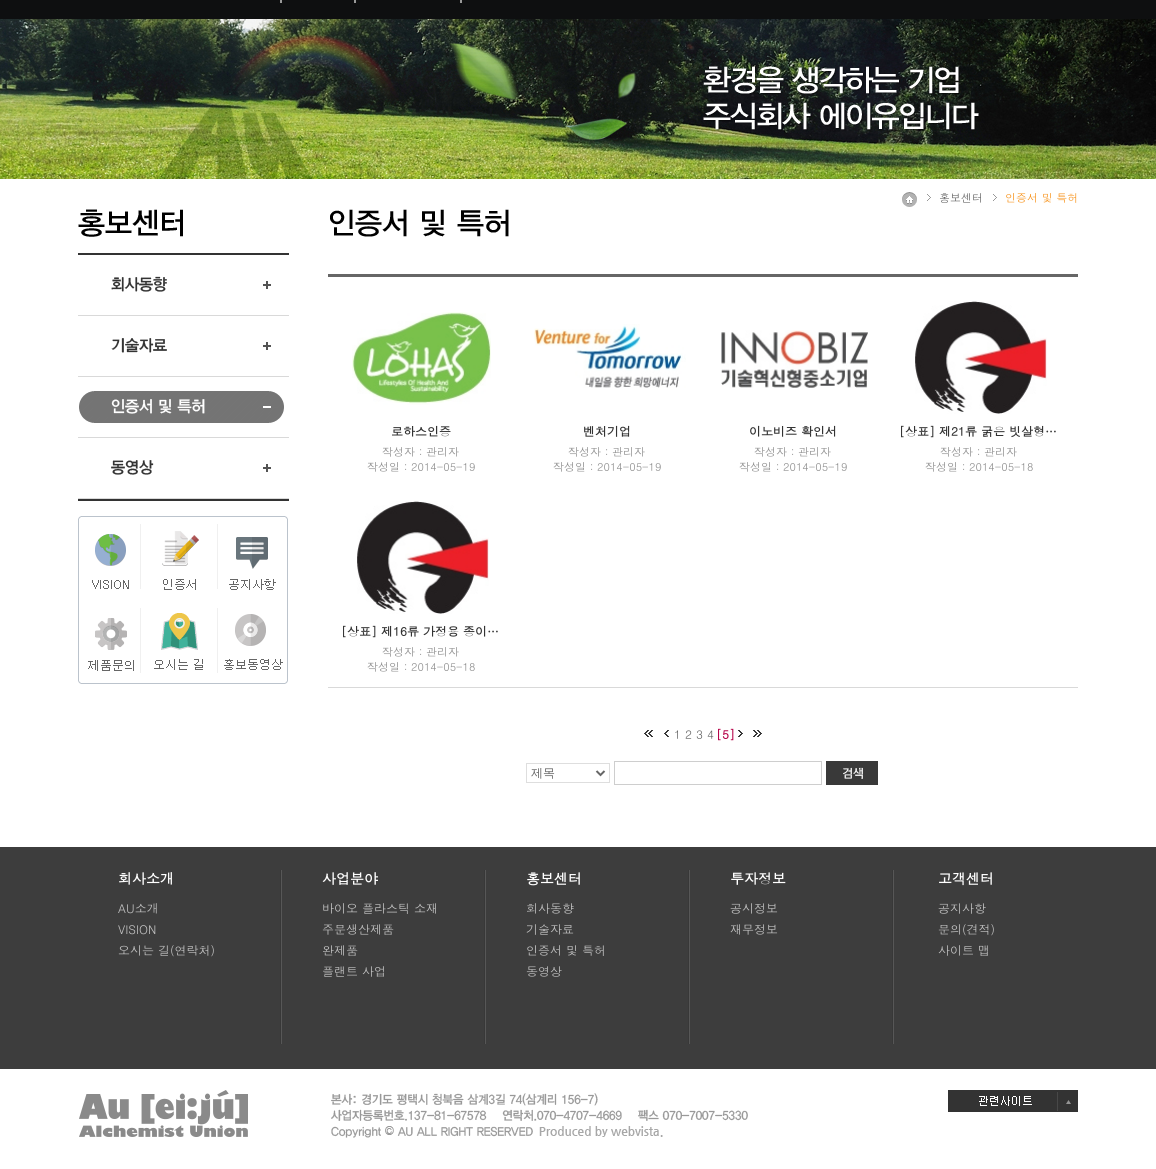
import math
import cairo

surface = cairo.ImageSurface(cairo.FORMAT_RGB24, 1156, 1169)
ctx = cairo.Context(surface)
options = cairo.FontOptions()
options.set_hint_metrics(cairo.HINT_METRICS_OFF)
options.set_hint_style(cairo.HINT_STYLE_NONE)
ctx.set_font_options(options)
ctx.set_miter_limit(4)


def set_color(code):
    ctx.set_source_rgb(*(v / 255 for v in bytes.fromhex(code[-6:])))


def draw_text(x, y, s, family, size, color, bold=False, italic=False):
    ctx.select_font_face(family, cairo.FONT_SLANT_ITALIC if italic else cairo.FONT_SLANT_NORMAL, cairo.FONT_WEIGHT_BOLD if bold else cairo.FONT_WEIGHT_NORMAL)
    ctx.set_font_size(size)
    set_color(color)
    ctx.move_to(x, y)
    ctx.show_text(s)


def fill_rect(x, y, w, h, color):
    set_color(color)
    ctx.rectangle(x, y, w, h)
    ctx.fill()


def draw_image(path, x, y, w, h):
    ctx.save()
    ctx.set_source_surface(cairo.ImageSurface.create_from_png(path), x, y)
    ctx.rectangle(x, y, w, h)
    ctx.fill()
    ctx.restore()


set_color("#ffffff")
ctx.paint()
fill_rect(0, 0, 1156, 19, "#0e0f10")
fill_rect(280, 0, 2, 3, "#999999")
fill_rect(354, 0, 2, 3, "#999999")
fill_rect(460, 0, 2, 3, "#999999")
draw_image("assets/img1.png", 0, 19, 1156, 160)
draw_image("assets/img2.png", 702, 65, 277, 67)
draw_image("assets/img3.png", 902, 192, 15, 15)
draw_image("assets/img4.png", 927, 194, 4, 7)
draw_text(939, 202, "홍보센터", "Dotum", 11, "#666666")
draw_image("assets/img4.png", 993, 194, 4, 7)
draw_text(1005, 202, "인증서 및 특허", "Dotum", 11, "#f7941e")
draw_image("assets/img5.png", 78, 209, 211, 46)
fill_rect(78, 499, 211, 2, "#333333")
fill_rect(78, 315, 211, 1, "#d9d9d9")
draw_image("assets/img6.png", 111, 276, 160, 16)
fill_rect(78, 376, 211, 1, "#d9d9d9")
draw_image("assets/img7.png", 111, 338, 160, 15)
fill_rect(78, 437, 211, 1, "#d9d9d9")
draw_image("assets/img8.png", 79, 391, 205, 32)
fill_rect(78, 498, 211, 1, "#d9d9d9")
draw_image("assets/img9.png", 111, 460, 160, 15)
draw_image("assets/img10.png", 78, 516, 63, 81)
draw_image("assets/img11.png", 141, 516, 77, 74)
draw_image("assets/img12.png", 218, 516, 70, 81)
draw_image("assets/img13.png", 78, 597, 63, 87)
draw_image("assets/img14.png", 141, 608, 77, 76)
draw_image("assets/img15.png", 218, 597, 70, 87)
draw_image("assets/img16.png", 330, 209, 179, 28)
fill_rect(328, 274, 750, 3, "#666666")
fill_rect(328, 687, 750, 1, "#d9d9d9")
draw_image("assets/img17.png", 352, 312, 139, 93)
draw_text(391, 436, "로하스인증", "Dotum", 12, "#333333", bold=True)
draw_text(382, 456, "작성자 : 관리자", "Dotum", 11, "#8c8c8c")
draw_text(367, 471, "작성일 : 2014-05-19", "Dotum", 11, "#8c8c8c")
draw_image("assets/img18.png", 534, 324, 152, 64)
draw_text(583, 436, "벤처기업", "Dotum", 12, "#333333", bold=True)
draw_text(568, 456, "작성자 : 관리자", "Dotum", 11, "#8c8c8c")
draw_text(553, 471, "작성일 : 2014-05-19", "Dotum", 11, "#8c8c8c")
draw_image("assets/img19.png", 721, 330, 147, 58)
draw_text(749, 436, "이노비즈 확인서", "Dotum", 12, "#333333", bold=True)
draw_text(754, 456, "작성자 : 관리자", "Dotum", 11, "#8c8c8c")
draw_text(739, 471, "작성일 : 2014-05-19", "Dotum", 11, "#8c8c8c")
draw_image("assets/img20.png", 915, 301, 132, 113)
draw_text(899, 436, "[상표] 제21류 굵은 빗살형…", "Dotum", 12, "#333333", bold=True)
draw_text(940, 456, "작성자 : 관리자", "Dotum", 11, "#8c8c8c")
draw_text(925, 471, "작성일 : 2014-05-18", "Dotum", 11, "#8c8c8c")
draw_image("assets/img21.png", 357, 501, 132, 113)
draw_text(341, 636, "[상표] 제16류 가정용 종이…", "Dotum", 12, "#333333", bold=True)
draw_text(382, 656, "작성자 : 관리자", "Dotum", 11, "#8c8c8c")
draw_text(367, 671, "작성일 : 2014-05-18", "Dotum", 11, "#8c8c8c")
draw_image("assets/img22.png", 644, 730, 9, 7)
draw_image("assets/img23.png", 664, 730, 5, 7)
draw_text(674, 739, "1 2 3 4", "Dotum", 12, "#666666")
draw_text(716, 739, "[5]", "Dotum", 12, "#b50047", bold=True)
draw_image("assets/img24.png", 738, 730, 5, 7)
draw_image("assets/img25.png", 753, 730, 9, 7)
ctx.rectangle(526.5, 763.5, 83, 19)
set_color("#dedede")
ctx.set_line_width(1)
ctx.stroke()
ctx.new_path()
ctx.move_to(596.5, 771)
ctx.line_to(600.5, 775)
ctx.line_to(604.5, 771)
set_color("#666666")
ctx.set_line_width(2)
ctx.stroke()
draw_text(531, 777, "제목", "WenQuanYi Zen Hei Medium", 12, "#666666")
ctx.rectangle(614.5, 761.5, 207, 23)
set_color("#cecece")
ctx.set_line_width(1)
ctx.stroke()
draw_image("assets/img26.png", 826, 761, 52, 24)
fill_rect(0, 847, 1156, 222, "#3d3d3d")
draw_image("assets/img27.png", 280, 870, 2, 174)
draw_text(118, 884, "회사소개", "Dotum", 14, "#ffffff", bold=True)
draw_text(118, 913, "AU소개", "Dotum", 12, "#c5c5c5")
draw_text(118, 934, "VISION", "Dotum", 12, "#c5c5c5")
draw_text(118, 955, "오시는 길(연락처)", "Dotum", 12, "#c5c5c5")
draw_image("assets/img27.png", 484, 870, 2, 174)
draw_text(322, 884, "사업분야", "Dotum", 14, "#ffffff", bold=True)
draw_text(322, 913, "바이오 플라스틱 소재", "Dotum", 12, "#c5c5c5")
draw_text(322, 934, "주문생산제품", "Dotum", 12, "#c5c5c5")
draw_text(322, 955, "완제품", "Dotum", 12, "#c5c5c5")
draw_text(322, 976, "플랜트 사업", "Dotum", 12, "#c5c5c5")
draw_image("assets/img27.png", 688, 870, 2, 174)
draw_text(526, 884, "홍보센터", "Dotum", 14, "#ffffff", bold=True)
draw_text(526, 913, "회사동향", "Dotum", 12, "#c5c5c5")
draw_text(526, 934, "기술자료", "Dotum", 12, "#c5c5c5")
draw_text(526, 955, "인증서 및 특허", "Dotum", 12, "#c5c5c5")
draw_text(526, 976, "동영상", "Dotum", 12, "#c5c5c5")
draw_image("assets/img27.png", 892, 870, 2, 174)
draw_text(730, 884, "투자정보", "Dotum", 14, "#ffffff", bold=True)
draw_text(730, 913, "공시정보", "Dotum", 12, "#c5c5c5")
draw_text(730, 934, "재무정보", "Dotum", 12, "#c5c5c5")
draw_text(938, 884, "고객센터", "Dotum", 14, "#ffffff", bold=True)
draw_text(938, 913, "공지사항", "Dotum", 12, "#c5c5c5")
draw_text(938, 934, "문의(견적)", "Dotum", 12, "#c5c5c5")
draw_text(938, 955, "사이트 맵", "Dotum", 12, "#c5c5c5")
draw_image("assets/img28.png", 79, 1090, 169, 47)
draw_image("assets/img29.png", 331, 1093, 417, 45)
draw_image("assets/img30.png", 948, 1090, 130, 22)
surface.write_to_png("output.png")
